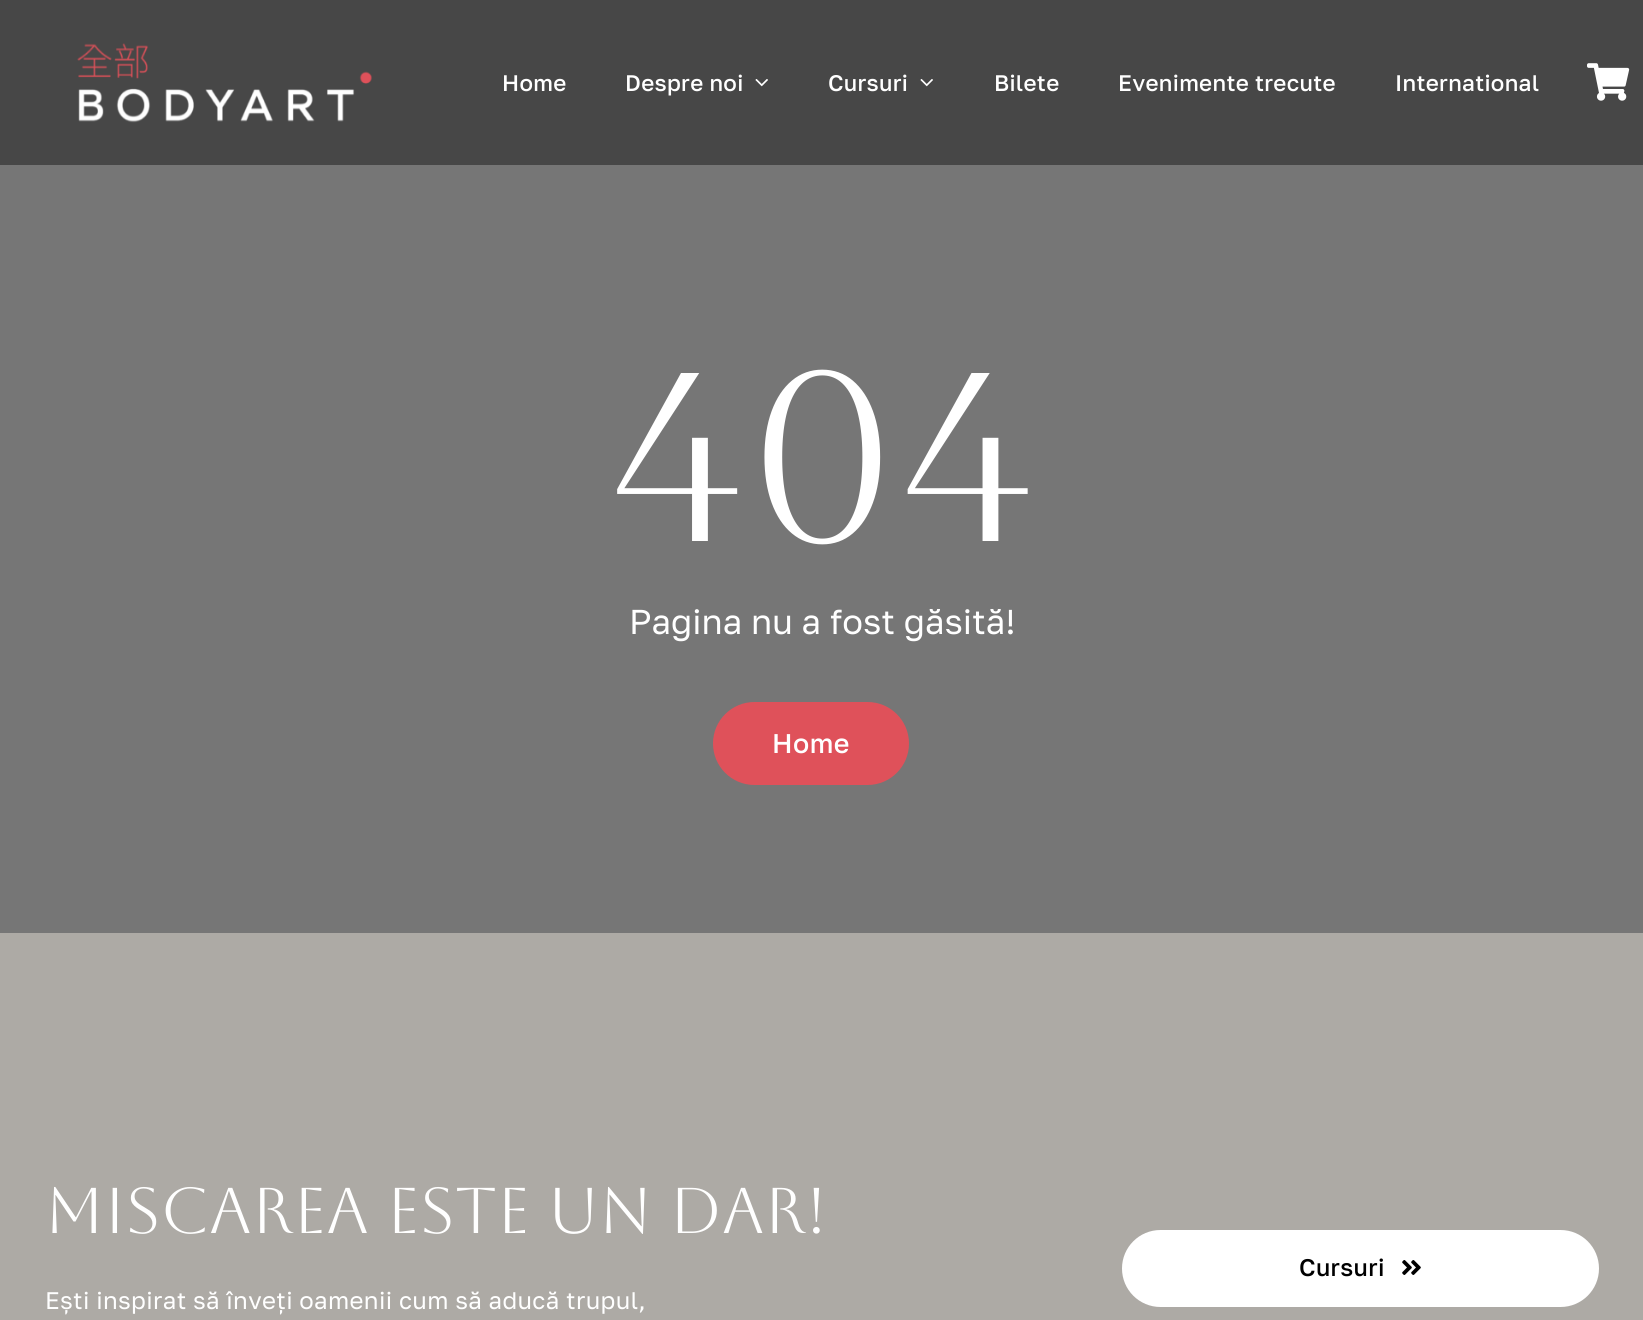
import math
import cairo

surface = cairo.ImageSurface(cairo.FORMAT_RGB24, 1643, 1320)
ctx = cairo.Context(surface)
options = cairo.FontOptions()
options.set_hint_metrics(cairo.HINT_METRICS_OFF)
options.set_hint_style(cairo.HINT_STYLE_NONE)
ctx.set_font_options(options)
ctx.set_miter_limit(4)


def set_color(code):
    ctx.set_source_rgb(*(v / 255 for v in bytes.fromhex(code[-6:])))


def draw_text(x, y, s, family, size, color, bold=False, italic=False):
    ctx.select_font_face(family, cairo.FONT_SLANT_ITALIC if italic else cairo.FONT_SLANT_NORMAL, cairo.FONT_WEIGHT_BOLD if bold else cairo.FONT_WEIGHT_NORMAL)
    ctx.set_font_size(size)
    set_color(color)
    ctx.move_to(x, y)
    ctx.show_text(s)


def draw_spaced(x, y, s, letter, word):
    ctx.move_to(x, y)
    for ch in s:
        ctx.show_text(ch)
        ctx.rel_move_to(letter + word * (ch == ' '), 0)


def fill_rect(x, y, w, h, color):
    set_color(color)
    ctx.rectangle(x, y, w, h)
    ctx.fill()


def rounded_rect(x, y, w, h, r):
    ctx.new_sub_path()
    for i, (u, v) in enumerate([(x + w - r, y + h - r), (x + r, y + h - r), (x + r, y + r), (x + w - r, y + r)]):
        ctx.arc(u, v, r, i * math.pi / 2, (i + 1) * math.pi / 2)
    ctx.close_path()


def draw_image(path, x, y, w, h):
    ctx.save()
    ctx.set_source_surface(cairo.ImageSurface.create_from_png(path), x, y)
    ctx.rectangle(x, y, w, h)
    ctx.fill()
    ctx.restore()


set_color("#474747")
ctx.paint()
draw_image("assets/img1.png", 77, 43, 295, 80)
ctx.select_font_face("Golos Text Medium")
ctx.set_font_size(22.5)
set_color("#ffffff")
draw_spaced(502, 91, "Home", 0.3, 0)
draw_spaced(625, 91, "Despre noi", 0.3, 0)
draw_image("assets/img2.png", 755, 79, 13, 8)
draw_spaced(828, 91, "Cursuri", 0.3, 0)
draw_image("assets/img2.png", 920, 79, 13, 8)
draw_spaced(994, 91, "Bilete", 0.3, 0)
draw_spaced(1118, 91, "Evenimente trecute", 0.3, 0)
draw_spaced(1395, 91, "International", 0.3, 0)
draw_image("assets/img3.png", 1587, 63, 43, 38)
fill_rect(0, 165, 1643, 768, "#767676")
draw_text(609, 541, "404", "Aboreto", 240, "#ffffff")
draw_text(629, 634, "Pagina nu a fost găsită!", "Golos Text", 34.5, "#ffffff")
set_color("#df515a")
rounded_rect(713, 702, 196, 83, 41.5)
ctx.fill()
ctx.select_font_face("Golos Text Medium")
ctx.set_font_size(27)
set_color("#ffffff")
draw_spaced(772, 753, "Home", 0.5, 0)
fill_rect(0, 933, 1643, 387, "#adaaa5")
draw_text(45, 1233, "Miscarea este un dar!", "Aboreto", 64.5, "#ffffff")
ctx.select_font_face("Golos Text")
ctx.set_font_size(24)
draw_spaced(45, 1309, "Ești inspirat să înveți oamenii cum să aducă trupul,", 0.35, 0)
rounded_rect(1122, 1230, 477, 77, 38.5)
ctx.fill()
ctx.select_font_face("Golos Text Medium")
set_color("#000000")
draw_spaced(1299, 1276, "Cursuri", 0.35, 0)
draw_image("assets/img4.png", 1402, 1260, 19, 15)
surface.write_to_png("output.png")
